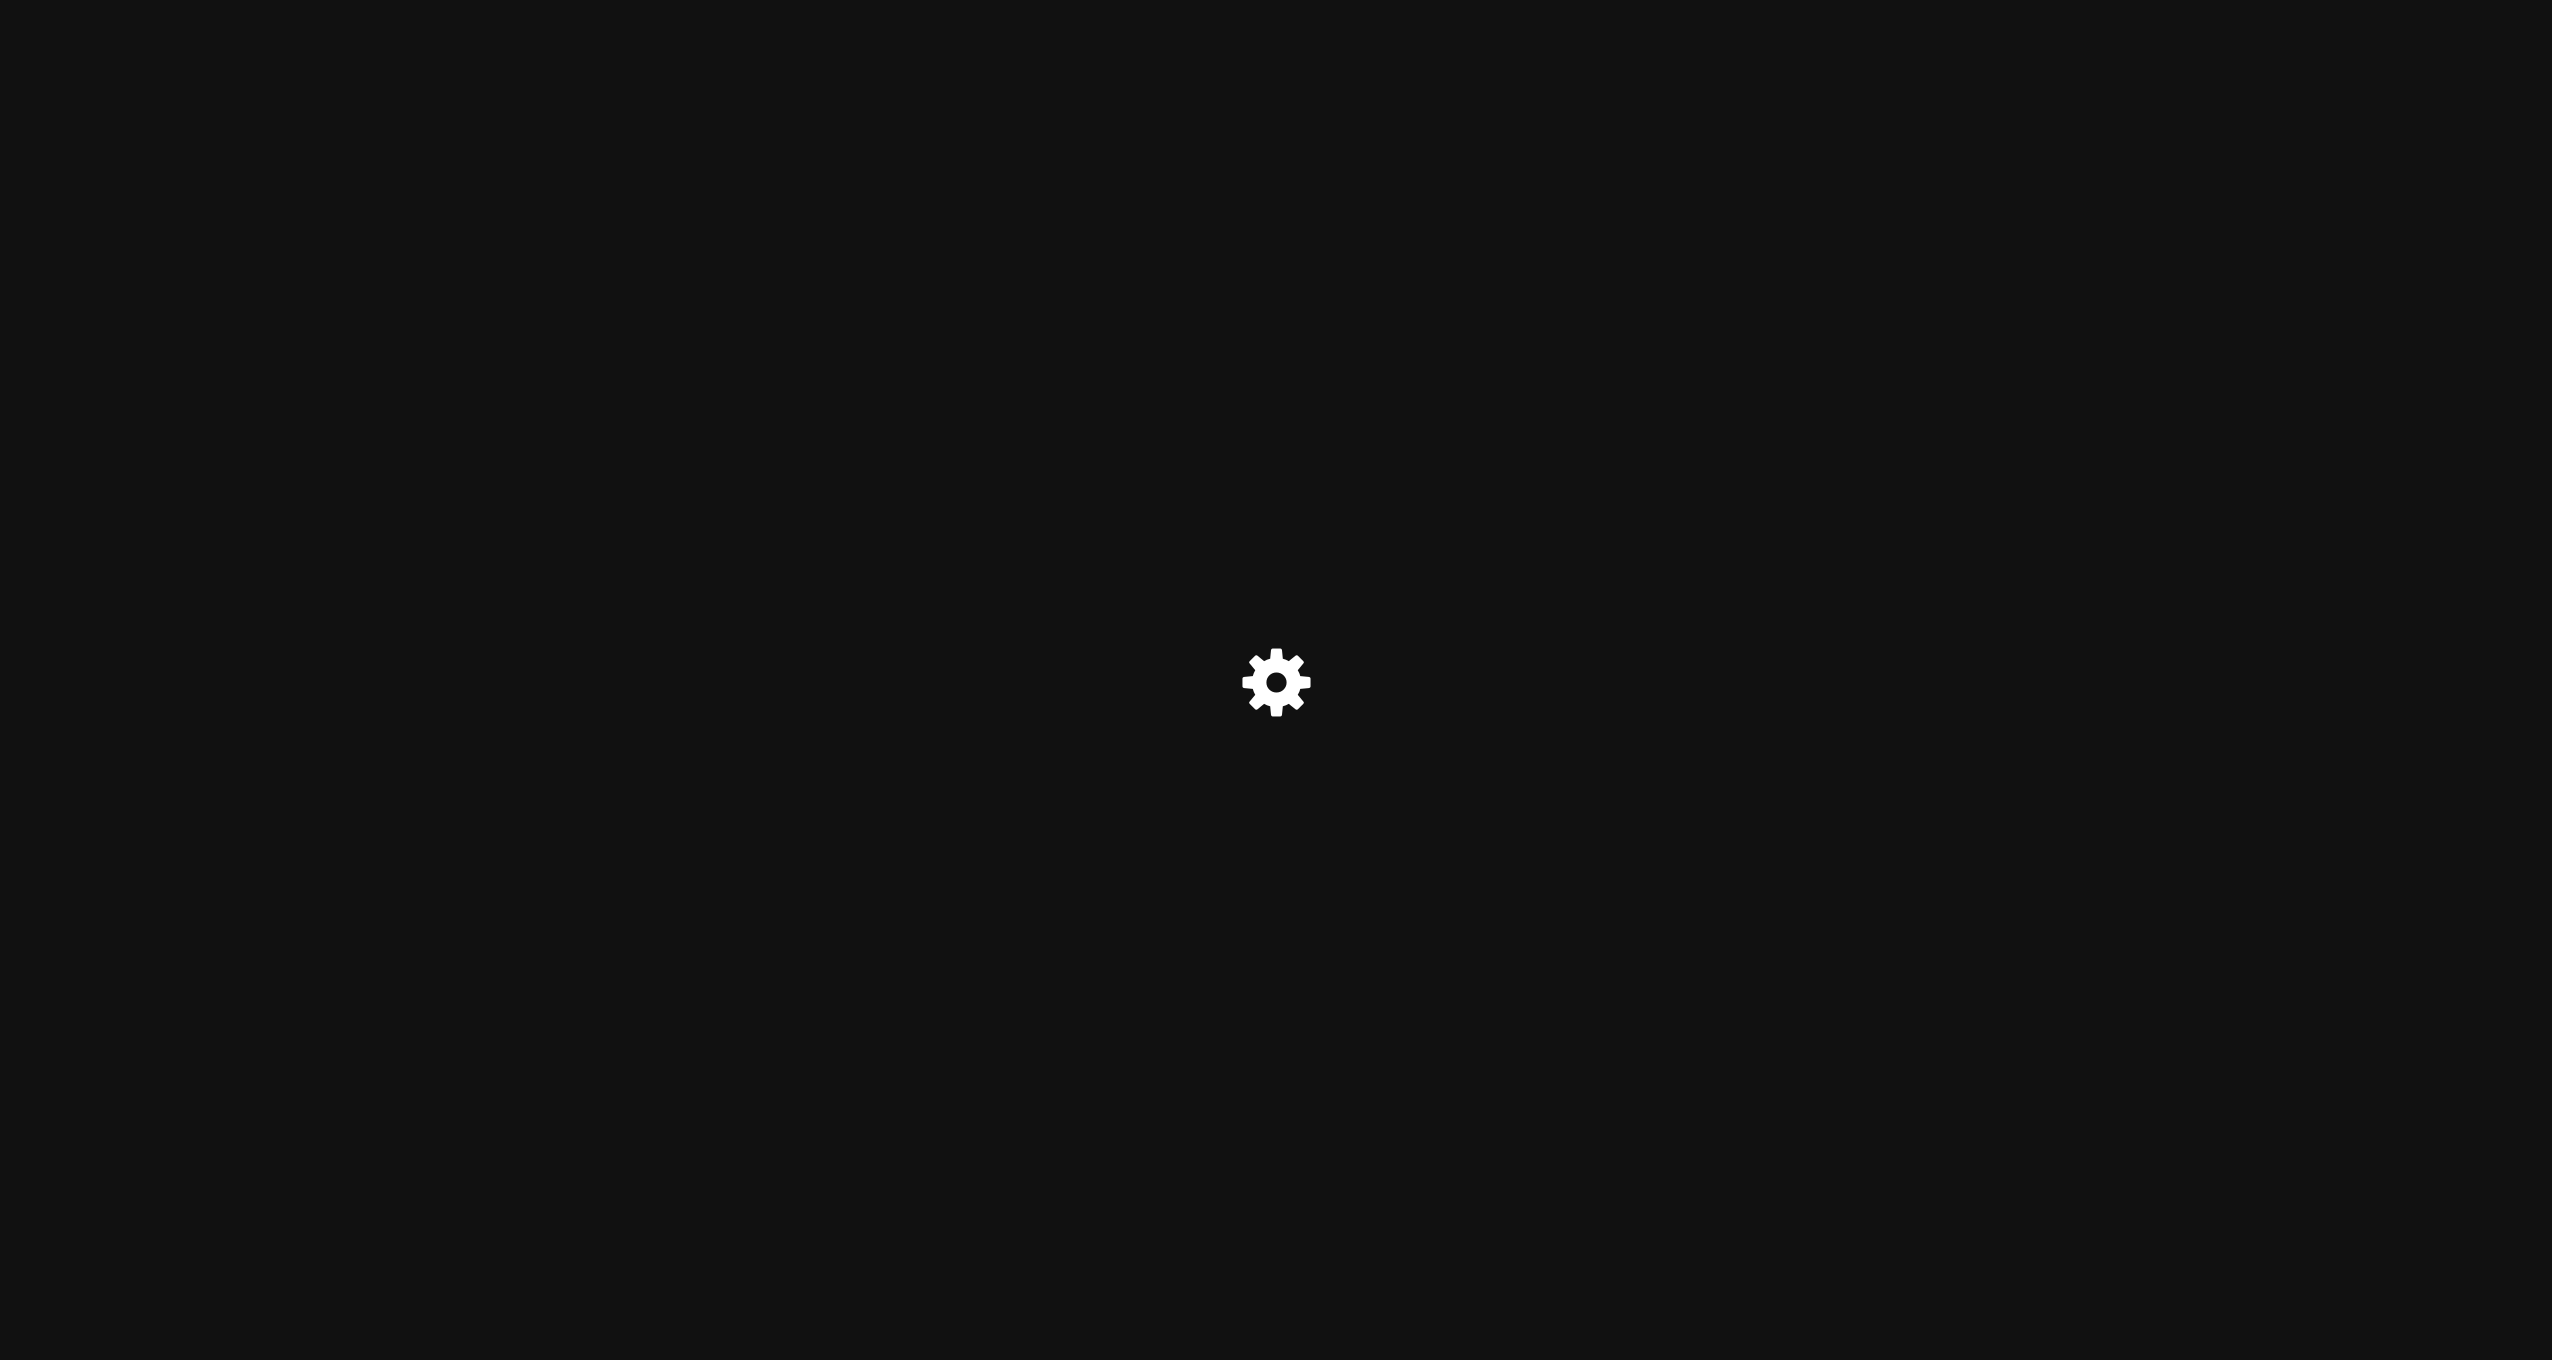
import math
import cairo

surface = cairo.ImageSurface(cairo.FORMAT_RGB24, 2552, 1360)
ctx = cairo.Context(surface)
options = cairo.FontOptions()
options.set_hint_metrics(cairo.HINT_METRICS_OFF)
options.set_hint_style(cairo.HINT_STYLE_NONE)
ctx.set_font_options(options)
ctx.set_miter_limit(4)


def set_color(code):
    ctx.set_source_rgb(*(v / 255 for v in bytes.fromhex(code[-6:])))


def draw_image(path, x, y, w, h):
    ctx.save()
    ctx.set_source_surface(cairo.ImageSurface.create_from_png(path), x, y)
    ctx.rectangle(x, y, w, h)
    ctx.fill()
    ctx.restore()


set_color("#111111")
ctx.paint()
draw_image("assets/img1.png", 1242, 648, 69, 69)
surface.write_to_png("output.png")
